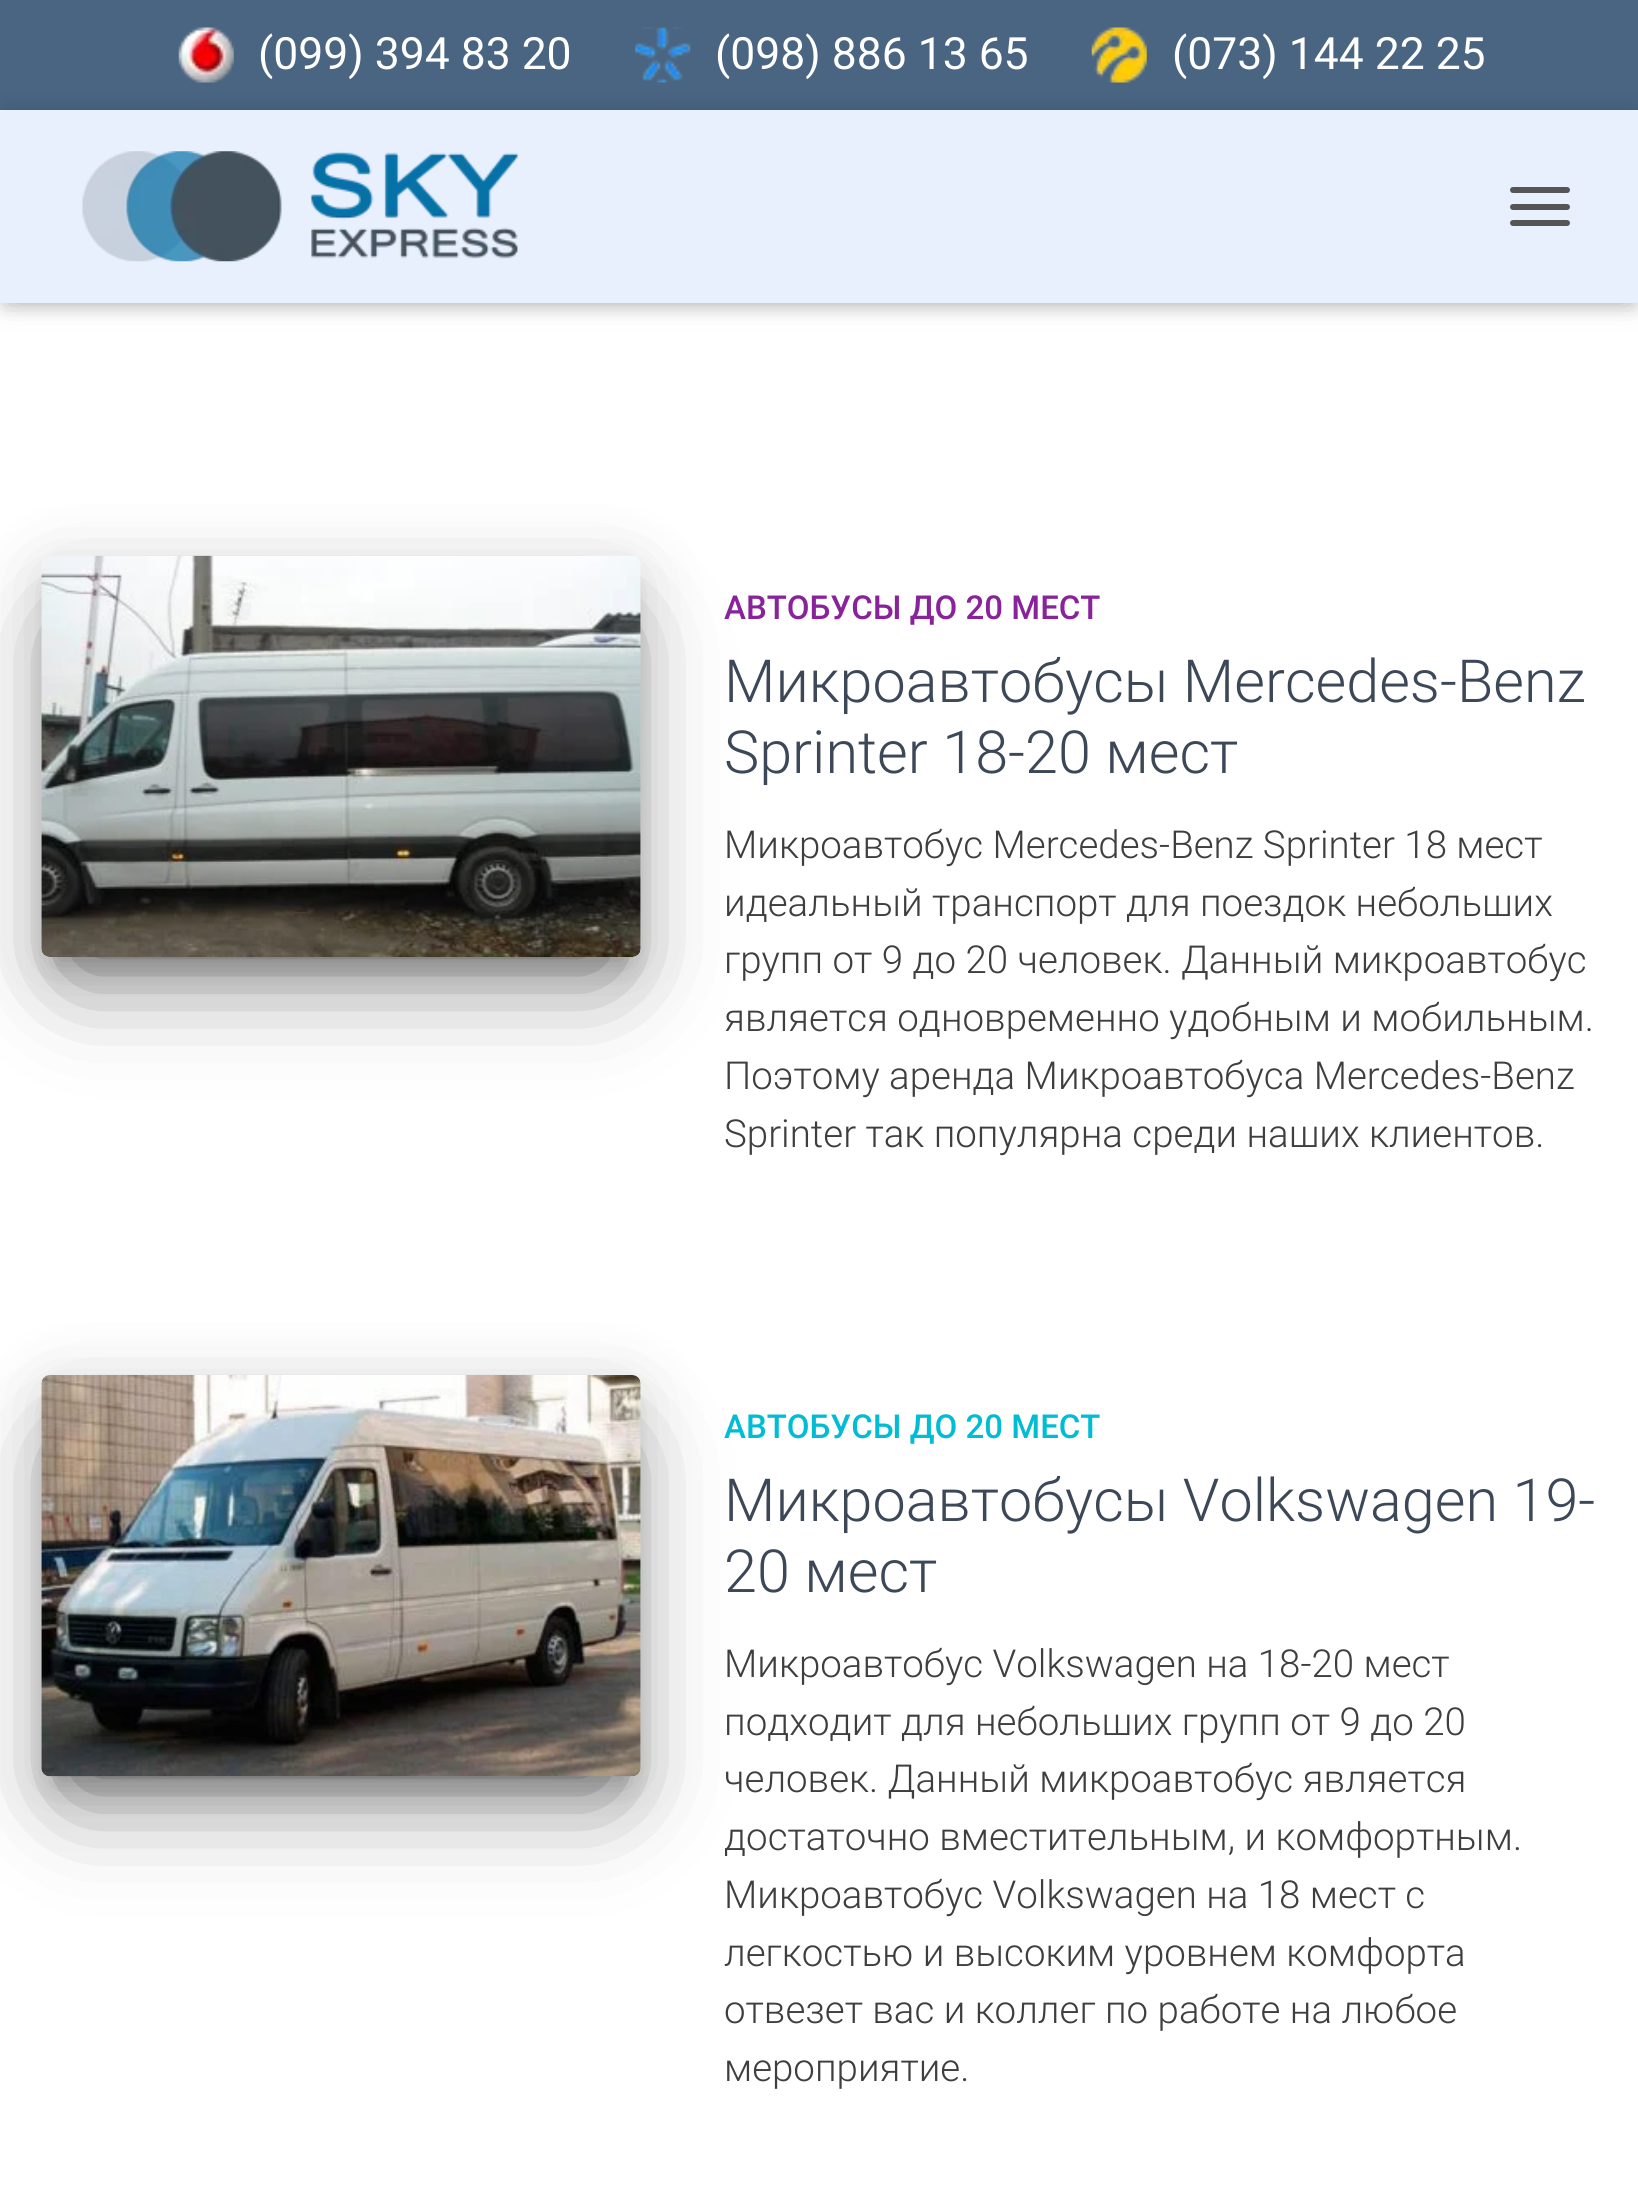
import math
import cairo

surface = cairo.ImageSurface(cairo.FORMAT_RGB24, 1638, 2211)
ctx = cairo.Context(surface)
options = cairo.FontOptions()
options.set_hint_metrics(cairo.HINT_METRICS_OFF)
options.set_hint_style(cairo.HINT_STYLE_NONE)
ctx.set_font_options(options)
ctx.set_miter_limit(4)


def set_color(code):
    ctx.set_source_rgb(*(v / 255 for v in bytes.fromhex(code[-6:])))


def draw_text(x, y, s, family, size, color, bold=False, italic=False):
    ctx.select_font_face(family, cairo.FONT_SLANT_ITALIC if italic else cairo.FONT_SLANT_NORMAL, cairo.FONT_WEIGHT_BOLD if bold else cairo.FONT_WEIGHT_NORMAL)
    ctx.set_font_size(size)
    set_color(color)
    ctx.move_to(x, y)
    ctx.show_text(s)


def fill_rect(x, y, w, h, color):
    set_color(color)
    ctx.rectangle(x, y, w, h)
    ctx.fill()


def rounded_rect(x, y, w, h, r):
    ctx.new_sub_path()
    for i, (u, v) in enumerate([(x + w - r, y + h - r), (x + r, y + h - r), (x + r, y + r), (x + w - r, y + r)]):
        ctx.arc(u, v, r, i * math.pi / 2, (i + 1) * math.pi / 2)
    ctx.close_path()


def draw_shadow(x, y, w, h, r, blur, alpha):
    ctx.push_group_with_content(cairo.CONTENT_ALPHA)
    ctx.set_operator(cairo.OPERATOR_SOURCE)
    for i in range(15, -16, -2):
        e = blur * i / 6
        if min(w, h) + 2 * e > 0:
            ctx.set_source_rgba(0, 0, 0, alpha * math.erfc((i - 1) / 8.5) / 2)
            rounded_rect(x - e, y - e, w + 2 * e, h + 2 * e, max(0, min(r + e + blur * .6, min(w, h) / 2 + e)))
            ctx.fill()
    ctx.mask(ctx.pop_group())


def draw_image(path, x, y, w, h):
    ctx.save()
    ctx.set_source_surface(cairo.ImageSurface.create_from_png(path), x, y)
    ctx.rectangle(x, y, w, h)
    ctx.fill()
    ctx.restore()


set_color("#ffffff")
ctx.paint()
fill_rect(0, 0, 1638, 110, "#4a6582")
draw_image("assets/img1.png", 178, 27, 56, 56)
draw_text(258, 69, "(099) 394 83 20", "Roboto", 44.5, "#ffffff")
draw_image("assets/img2.png", 635, 27, 56, 56)
draw_text(715, 69, "(098) 886 13 65", "Roboto", 44.5, "#ffffff")
draw_image("assets/img3.png", 1091, 27, 56, 56)
draw_text(1172, 69, "(073) 144 22 25", "Roboto", 44.5, "#ffffff")
set_color("#000000")
draw_shadow(6, 127, 1628, 181, 0, 7, 0.1)
draw_shadow(0, 113, 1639, 192, 0, 14, 0.12)
draw_shadow(17, 129, 1606, 160, 0, 14, 0.42)
fill_rect(0, 110, 1638, 193, "#e8f0fe")
draw_image("assets/img4.png", 82, 151, 438, 111)
set_color("#555555")
rounded_rect(1510, 187, 60, 6, 3)
ctx.fill()
rounded_rect(1510, 204, 60, 6, 3)
ctx.fill()
rounded_rect(1510, 220, 60, 6, 3)
ctx.fill()
set_color("#000000")
draw_shadow(55, 591, 572, 374, 0, 14, 0.2)
draw_shadow(41, 567, 600, 401, 8, 34.5, 0.12)
draw_shadow(74, 633, 534, 335, 0, 52, 0.56)
draw_image("assets/img5.png", 41, 555, 600, 402)
draw_text(724, 619, "АВТОБУСЫ ДО 20 МЕСТ", "Roboto Medium", 33, "#89229b")
draw_text(724, 702, "Микроавтобусы Mercedes-Benz", "Roboto Light", 59.4, "#3c4858")
draw_text(724, 773, "Sprinter 18-20 мест", "Roboto Light", 59.4, "#3c4858")
draw_text(724, 858, "Микроавтобус Mercedes-Benz Sprinter 18 мест", "Roboto Light", 38.5, "#3e3e3e")
draw_text(724, 916, "идеальный транспорт для поездок небольших", "Roboto Light", 38.5, "#3e3e3e")
draw_text(724, 973, "групп от 9 до 20 человек. Данный микроавтобус", "Roboto Light", 38.5, "#3e3e3e")
draw_text(724, 1031, "является одновременно удобным и мобильным.", "Roboto Light", 38.5, "#3e3e3e")
draw_text(724, 1089, "Поэтому аренда Микроавтобуса Mercedes-Benz", "Roboto Light", 38.5, "#3e3e3e")
draw_text(724, 1147, "Sprinter так популярна среди наших клиентов.", "Roboto Light", 38.5, "#3e3e3e")
set_color("#000000")
draw_shadow(55, 1411, 572, 374, 0, 14, 0.2)
draw_shadow(41, 1386, 600, 402, 8, 34.5, 0.12)
draw_shadow(74, 1452, 534, 336, 0, 52, 0.56)
draw_image("assets/img6.png", 41, 1375, 600, 402)
draw_text(724, 1438, "АВТОБУСЫ ДО 20 МЕСТ", "Roboto Medium", 33, "#00bcd4")
draw_text(724, 1521, "Микроавтобусы Volkswagen 19-", "Roboto Light", 59.4, "#3c4858")
draw_text(724, 1592, "20 мест", "Roboto Light", 59.4, "#3c4858")
draw_text(724, 1677, "Микроавтобус Volkswagen на 18-20 мест", "Roboto Light", 38.5, "#3e3e3e")
draw_text(724, 1735, "подходит для небольших групп от 9 до 20", "Roboto Light", 38.5, "#3e3e3e")
draw_text(724, 1792, "человек. Данный микроавтобус является", "Roboto Light", 38.5, "#3e3e3e")
draw_text(724, 1850, "достаточно вместительным, и комфортным.", "Roboto Light", 38.5, "#3e3e3e")
draw_text(724, 1908, "Микроавтобус Volkswagen на 18 мест с", "Roboto Light", 38.5, "#3e3e3e")
draw_text(724, 1966, "легкостью и высоким уровнем комфорта", "Roboto Light", 38.5, "#3e3e3e")
draw_text(724, 2023, "отвезет вас и коллег по работе на любое", "Roboto Light", 38.5, "#3e3e3e")
draw_text(724, 2081, "мероприятие.", "Roboto Light", 38.5, "#3e3e3e")
surface.write_to_png("output.png")
